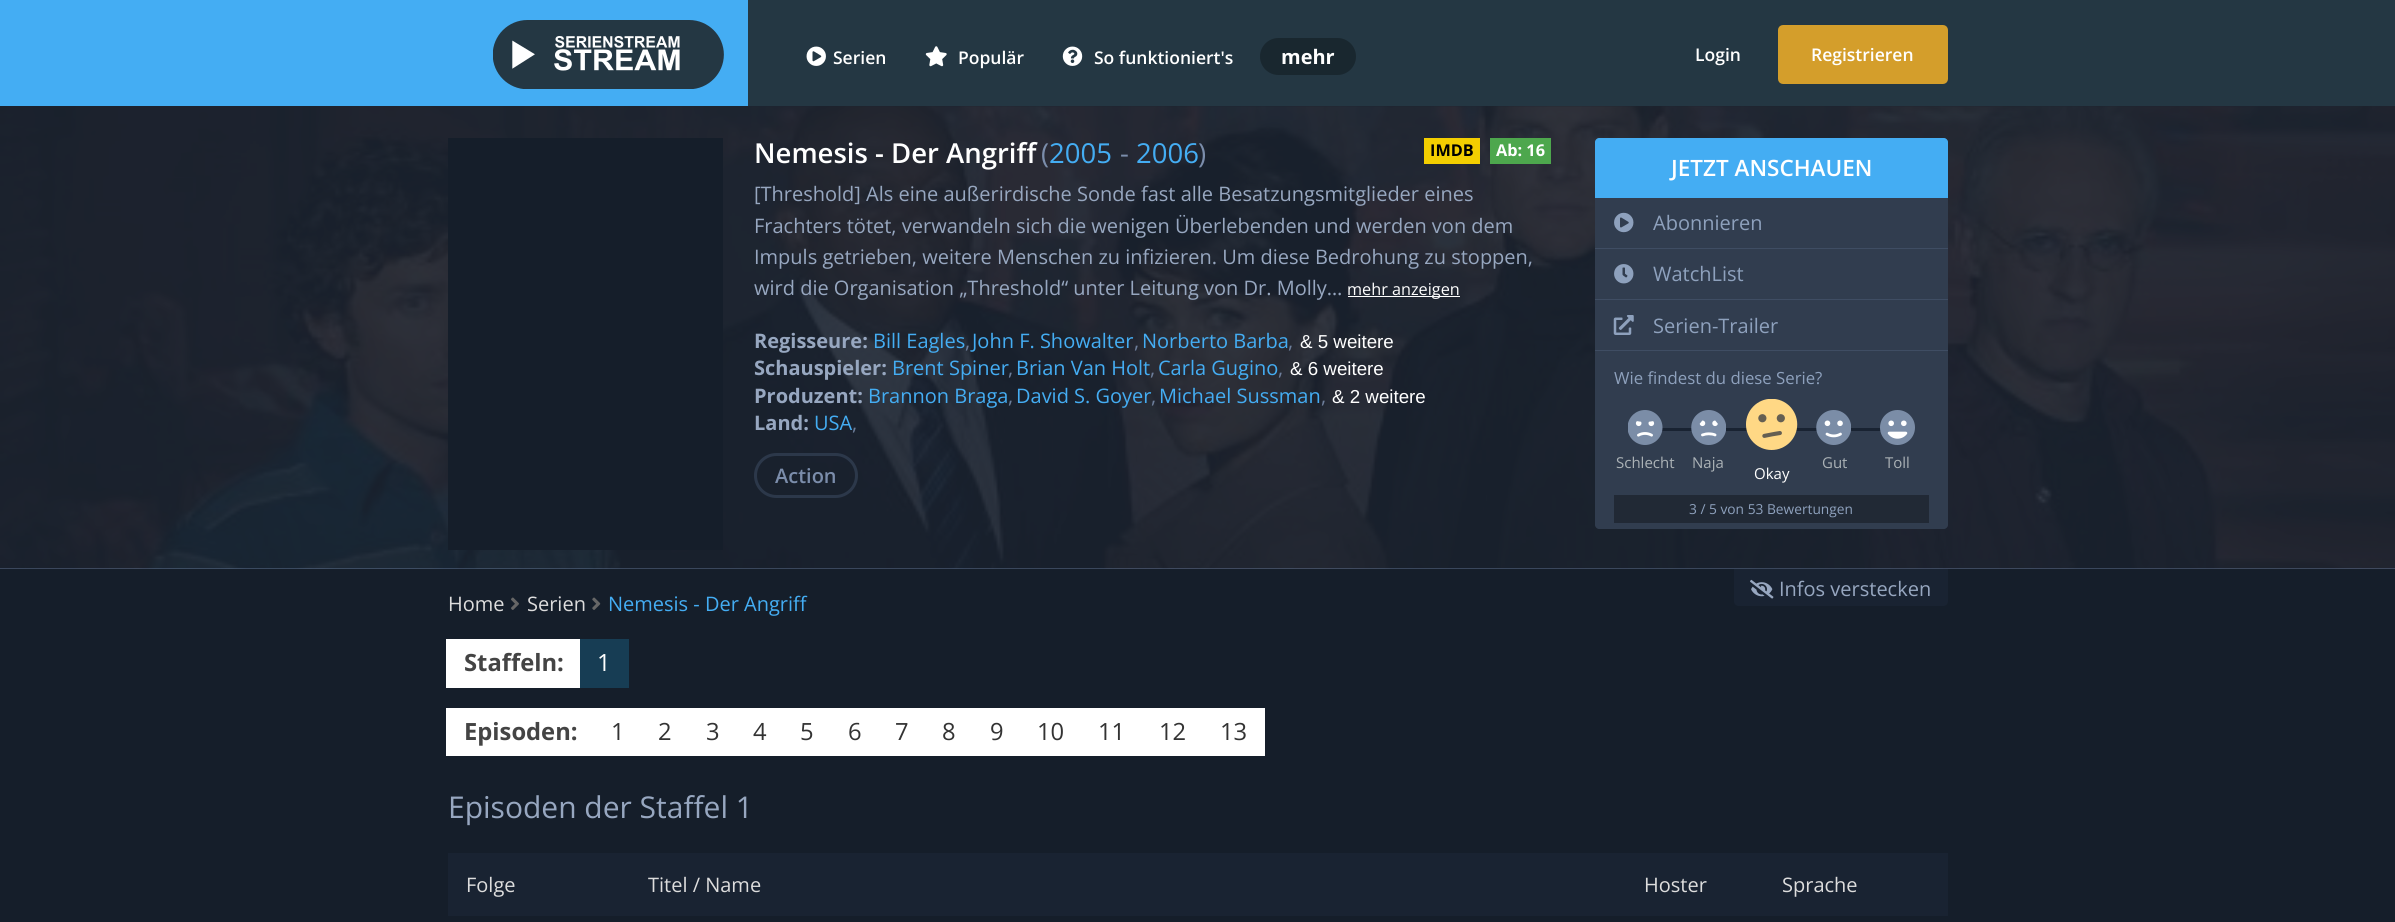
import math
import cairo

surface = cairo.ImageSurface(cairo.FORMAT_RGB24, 2395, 922)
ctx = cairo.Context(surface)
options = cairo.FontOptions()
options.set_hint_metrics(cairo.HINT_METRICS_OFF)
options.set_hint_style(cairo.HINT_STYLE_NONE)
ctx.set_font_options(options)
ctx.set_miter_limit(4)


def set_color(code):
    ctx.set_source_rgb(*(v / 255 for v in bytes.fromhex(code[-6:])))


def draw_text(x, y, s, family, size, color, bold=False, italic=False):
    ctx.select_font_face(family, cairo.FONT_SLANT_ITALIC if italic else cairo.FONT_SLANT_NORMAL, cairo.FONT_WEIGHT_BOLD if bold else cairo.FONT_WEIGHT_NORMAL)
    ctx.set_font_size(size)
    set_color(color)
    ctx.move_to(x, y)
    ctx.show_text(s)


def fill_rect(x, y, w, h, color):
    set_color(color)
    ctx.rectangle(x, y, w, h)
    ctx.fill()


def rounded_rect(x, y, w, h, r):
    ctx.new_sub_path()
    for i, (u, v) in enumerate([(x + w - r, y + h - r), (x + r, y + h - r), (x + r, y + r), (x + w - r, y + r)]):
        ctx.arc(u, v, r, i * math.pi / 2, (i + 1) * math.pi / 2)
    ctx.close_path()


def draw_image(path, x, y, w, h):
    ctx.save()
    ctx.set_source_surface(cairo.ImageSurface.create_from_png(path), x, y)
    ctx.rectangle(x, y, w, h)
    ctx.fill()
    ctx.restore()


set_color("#151e2a")
ctx.paint()
fill_rect(0, 0, 748, 106, "#44adf3")
fill_rect(748, 0, 1647, 106, "#243743")
draw_image("assets/img1.png", 493, 20, 231, 69)
draw_image("assets/img2.png", 806, 46, 20, 20)
draw_text(833, 64, "Serien", "Open Sans SemiBold", 17.5, "#ffffff")
draw_image("assets/img3.png", 925, 46, 22, 21)
draw_text(958, 64, "Populär", "Open Sans SemiBold", 17.5, "#ffffff")
draw_image("assets/img4.png", 1062, 46, 21, 20)
draw_text(1094, 64, "So funktioniert's", "Open Sans SemiBold", 17.5, "#ffffff")
set_color("#19272f")
rounded_rect(1260, 38, 96, 37, 18.5)
ctx.fill()
draw_text(1281, 64, "mehr", "Open Sans", 20, "#ffffff", bold=True)
draw_text(1695, 61, "Login", "Open Sans SemiBold", 17.5, "#ffffff")
set_color("#d49e2b")
rounded_rect(1779.5, 26.5, 167, 56, 3.5)
ctx.fill_preserve()
ctx.set_line_width(3)
ctx.stroke()
draw_text(1811, 61, "Registrieren", "Open Sans SemiBold", 17.5, "#ffffff")
fill_rect(0, 106, 2395, 462, "#1b2431")
fill_rect(0, 568, 2395, 1, "#3f4d63")
draw_image("assets/img5.png", 0, 106, 2395, 463)
fill_rect(448, 138, 275, 412, "#151e2a")
draw_text(754, 163, "Nemesis - Der Angriff", "Open Sans SemiBold", 27.5, "#ffffff")
draw_text(1041, 163, "(", "Open Sans", 27.5, "#7b8dab")
draw_text(1049, 163, "2005", "Open Sans", 27.5, "#44adf3")
draw_text(1120, 163, "-", "Open Sans", 27.5, "#7b8dab")
draw_text(1136, 163, "2006", "Open Sans", 27.5, "#44adf3")
draw_text(1198, 163, ")", "Open Sans", 27.5, "#7b8dab")
fill_rect(1424, 138, 56, 26, "#f3ce00")
draw_text(1430, 156, "IMDB", "Open Sans", 16.25, "#000000", bold=True)
fill_rect(1490, 138, 61, 26, "#4da74d")
draw_text(1496, 156, "Ab: 16", "Open Sans", 16.25, "#ffffff", bold=True)
draw_text(754, 201, "[Threshold] Als eine außerirdische Sonde fast alle Besatzungsmitglieder eines", "Open Sans", 20, "#97a7c0")
draw_text(754, 233, "Frachters tötet, verwandeln sich die wenigen Überlebenden und werden von dem", "Open Sans", 20, "#97a7c0")
draw_text(754, 264, "Impuls getrieben, weitere Menschen zu infizieren. Um diese Bedrohung zu stoppen,", "Open Sans", 20, "#97a7c0")
draw_text(754, 295, "wird die Organisation „Threshold“ unter Leitung von Dr. Molly…", "Open Sans", 20, "#97a7c0")
fill_rect(1348, 296, 112, 1, "#ffffff")
draw_text(1347, 295, "mehr anzeigen", "Open Sans", 16.25, "#ffffff")
draw_text(754, 348, "Regisseure:", "Open Sans", 20, "#97a7c0", bold=True)
draw_text(873, 348, "Bill Eagles", "Open Sans", 20, "#44adf3")
draw_text(965, 348, ",", "Open Sans", 20, "#6e7f9c")
draw_text(972, 348, "John F. Showalter", "Open Sans", 20, "#44adf3")
draw_text(1134, 348, ",", "Open Sans", 20, "#6e7f9c")
draw_text(1142, 348, "Norberto Barba", "Open Sans", 20, "#44adf3")
draw_text(1288, 348, ",", "Open Sans", 20, "#6e7f9c")
draw_text(1300, 348, "& 5 weitere", "Liberation Sans", 18.75, "#ffffff")
draw_text(754, 375, "Schauspieler:", "Open Sans", 20, "#97a7c0", bold=True)
draw_text(892, 375, "Brent Spiner", "Open Sans", 20, "#44adf3")
draw_text(1008, 375, ",", "Open Sans", 20, "#6e7f9c")
draw_text(1016, 375, "Brian Van Holt", "Open Sans", 20, "#44adf3")
draw_text(1150, 375, ",", "Open Sans", 20, "#6e7f9c")
draw_text(1158, 375, "Carla Gugino", "Open Sans", 20, "#44adf3")
draw_text(1278, 375, ",", "Open Sans", 20, "#6e7f9c")
draw_text(1290, 375, "& 6 weitere", "Liberation Sans", 18.75, "#ffffff")
draw_text(754, 403, "Produzent:", "Open Sans", 20, "#97a7c0", bold=True)
draw_text(868, 403, "Brannon Braga", "Open Sans", 20, "#44adf3")
draw_text(1008, 403, ",", "Open Sans", 20, "#6e7f9c")
draw_text(1016, 403, "David S. Goyer", "Open Sans", 20, "#44adf3")
draw_text(1151, 403, ",", "Open Sans", 20, "#6e7f9c")
draw_text(1159, 403, "Michael Sussman", "Open Sans", 20, "#44adf3")
draw_text(1321, 403, ",", "Open Sans", 20, "#6e7f9c")
draw_text(1332, 403, "& 2 weitere", "Liberation Sans", 18.75, "#ffffff")
draw_text(754, 430, "Land:", "Open Sans", 20, "#97a7c0", bold=True)
draw_text(814, 430, "USA", "Open Sans", 20, "#44adf3")
draw_text(852, 430, ",", "Open Sans", 20, "#6e7f9c")
rounded_rect(755.5, 454.5, 101, 42, 21)
set_color("#2c384a")
ctx.stroke()
draw_text(775, 483, "Action", "Open Sans SemiBold", 20, "#7b8dab")
set_color("#44adf3")
ctx.new_path()
ctx.move_to(1599, 138)
ctx.line_to(1944, 138)
ctx.curve_to(1946, 138, 1948, 140, 1948, 142)
ctx.line_to(1948, 198)
ctx.line_to(1595, 198)
ctx.line_to(1595, 142)
ctx.curve_to(1595, 140, 1597, 138, 1599, 138)
ctx.close_path()
ctx.fill()
draw_text(1671, 176, "JETZT ANSCHAUEN", "Open Sans SemiBold", 22.5, "#ffffff")
set_color("#313d4f")
ctx.new_path()
ctx.move_to(1595, 198)
ctx.line_to(1948, 198)
ctx.line_to(1948, 525)
ctx.curve_to(1948, 527, 1946, 529, 1944, 529)
ctx.line_to(1599, 529)
ctx.curve_to(1597, 529, 1595, 527, 1595, 525)
ctx.close_path()
ctx.fill()
draw_image("assets/img6.png", 1614, 212, 20, 21)
draw_text(1653, 230, "Abonnieren", "Open Sans", 20, "#8ea1bd")
fill_rect(1595, 248, 353, 1, "#3f4d63")
draw_image("assets/img7.png", 1614, 264, 20, 20)
draw_text(1653, 281, "WatchList", "Open Sans", 20, "#8ea1bd")
fill_rect(1595, 299, 353, 1, "#3f4d63")
draw_image("assets/img8.png", 1613, 315, 21, 20)
draw_text(1653, 333, "Serien-Trailer", "Open Sans", 20, "#8ea1bd")
fill_rect(1595, 350, 353, 1, "#3f4d63")
draw_text(1614, 384, "Wie findest du diese Serie?", "Open Sans", 16.75, "#8ea1bd")
fill_rect(1662, 428, 219, 3, "#192332")
draw_image("assets/img9.png", 1746, 399, 52, 51)
draw_image("assets/img10.png", 1628, 410, 35, 35)
draw_text(1616, 468, "Schlecht", "Open Sans", 15, "#abb2b6")
draw_image("assets/img11.png", 1691, 410, 35, 35)
draw_text(1692, 468, "Naja", "Open Sans", 15, "#abb2b6")
draw_image("assets/img12.png", 1816, 410, 35, 35)
draw_text(1822, 468, "Gut", "Open Sans", 15, "#abb2b6")
draw_image("assets/img13.png", 1880, 410, 35, 35)
draw_text(1885, 468, "Toll", "Open Sans", 15, "#abb2b6")
draw_text(1754, 479, "Okay", "Open Sans", 15, "#ffffff")
fill_rect(1614, 495, 315, 28, "#212935")
draw_text(1689, 514, "3 / 5 von 53 Bewertungen", "Open Sans", 13.75, "#8ea1bd")
set_color("#192332")
ctx.new_path()
ctx.move_to(1734, 569)
ctx.line_to(1948, 569)
ctx.line_to(1948, 601)
ctx.curve_to(1948, 604, 1946, 606, 1943, 606)
ctx.line_to(1739, 606)
ctx.curve_to(1736, 606, 1734, 604, 1734, 601)
ctx.close_path()
ctx.fill()
draw_image("assets/img14.png", 1750, 579, 24, 20)
draw_text(1779, 596, "Infos verstecken", "Open Sans", 20, "#97a7c0")
draw_text(448, 611, "Home", "Open Sans", 20, "#dddddd")
draw_image("assets/img15.png", 511, 597, 8, 13)
draw_text(527, 611, "Serien", "Open Sans", 20, "#dddddd")
draw_image("assets/img16.png", 592, 597, 9, 13)
draw_text(608, 611, "Nemesis - Der Angriff", "Open Sans", 20, "#44adf3")
fill_rect(446, 639, 134, 49, "#ffffff")
draw_text(464, 671, "Staffeln:", "Open Sans", 23.75, "#444444", bold=True)
fill_rect(580, 639, 49, 49, "#173d54")
draw_text(597, 671, "1", "Open Sans", 23.75, "#ffffff")
fill_rect(446, 708, 819, 48, "#ffffff")
draw_text(464, 740, "Episoden:", "Open Sans", 23.75, "#444444", bold=True)
draw_text(611, 740, "1", "Open Sans", 23.75, "#333333")
draw_text(658, 740, "2", "Open Sans", 23.75, "#333333")
draw_text(706, 740, "3", "Open Sans", 23.75, "#333333")
draw_text(753, 740, "4", "Open Sans", 23.75, "#333333")
draw_text(800, 740, "5", "Open Sans", 23.75, "#333333")
draw_text(848, 740, "6", "Open Sans", 23.75, "#333333")
draw_text(895, 740, "7", "Open Sans", 23.75, "#333333")
draw_text(942, 740, "8", "Open Sans", 23.75, "#333333")
draw_text(990, 740, "9", "Open Sans", 23.75, "#333333")
draw_text(1037, 740, "10", "Open Sans", 23.75, "#333333")
draw_text(1098, 740, "11", "Open Sans", 23.75, "#333333")
draw_text(1159, 740, "12", "Open Sans", 23.75, "#333333")
draw_text(1220, 740, "13", "Open Sans", 23.75, "#333333")
draw_text(448, 818, "Episoden der Staffel 1", "Open Sans", 30, "#97a7c0")
fill_rect(448, 853, 1500, 63, "#192332")
draw_text(466, 892, "Folge", "Open Sans", 20, "#dddddd")
draw_text(648, 892, "Titel / Name", "Open Sans", 20, "#dddddd")
draw_text(1644, 892, "Hoster", "Open Sans", 20, "#dddddd")
draw_text(1782, 892, "Sprache", "Open Sans", 20, "#dddddd")
surface.write_to_png("output.png")
